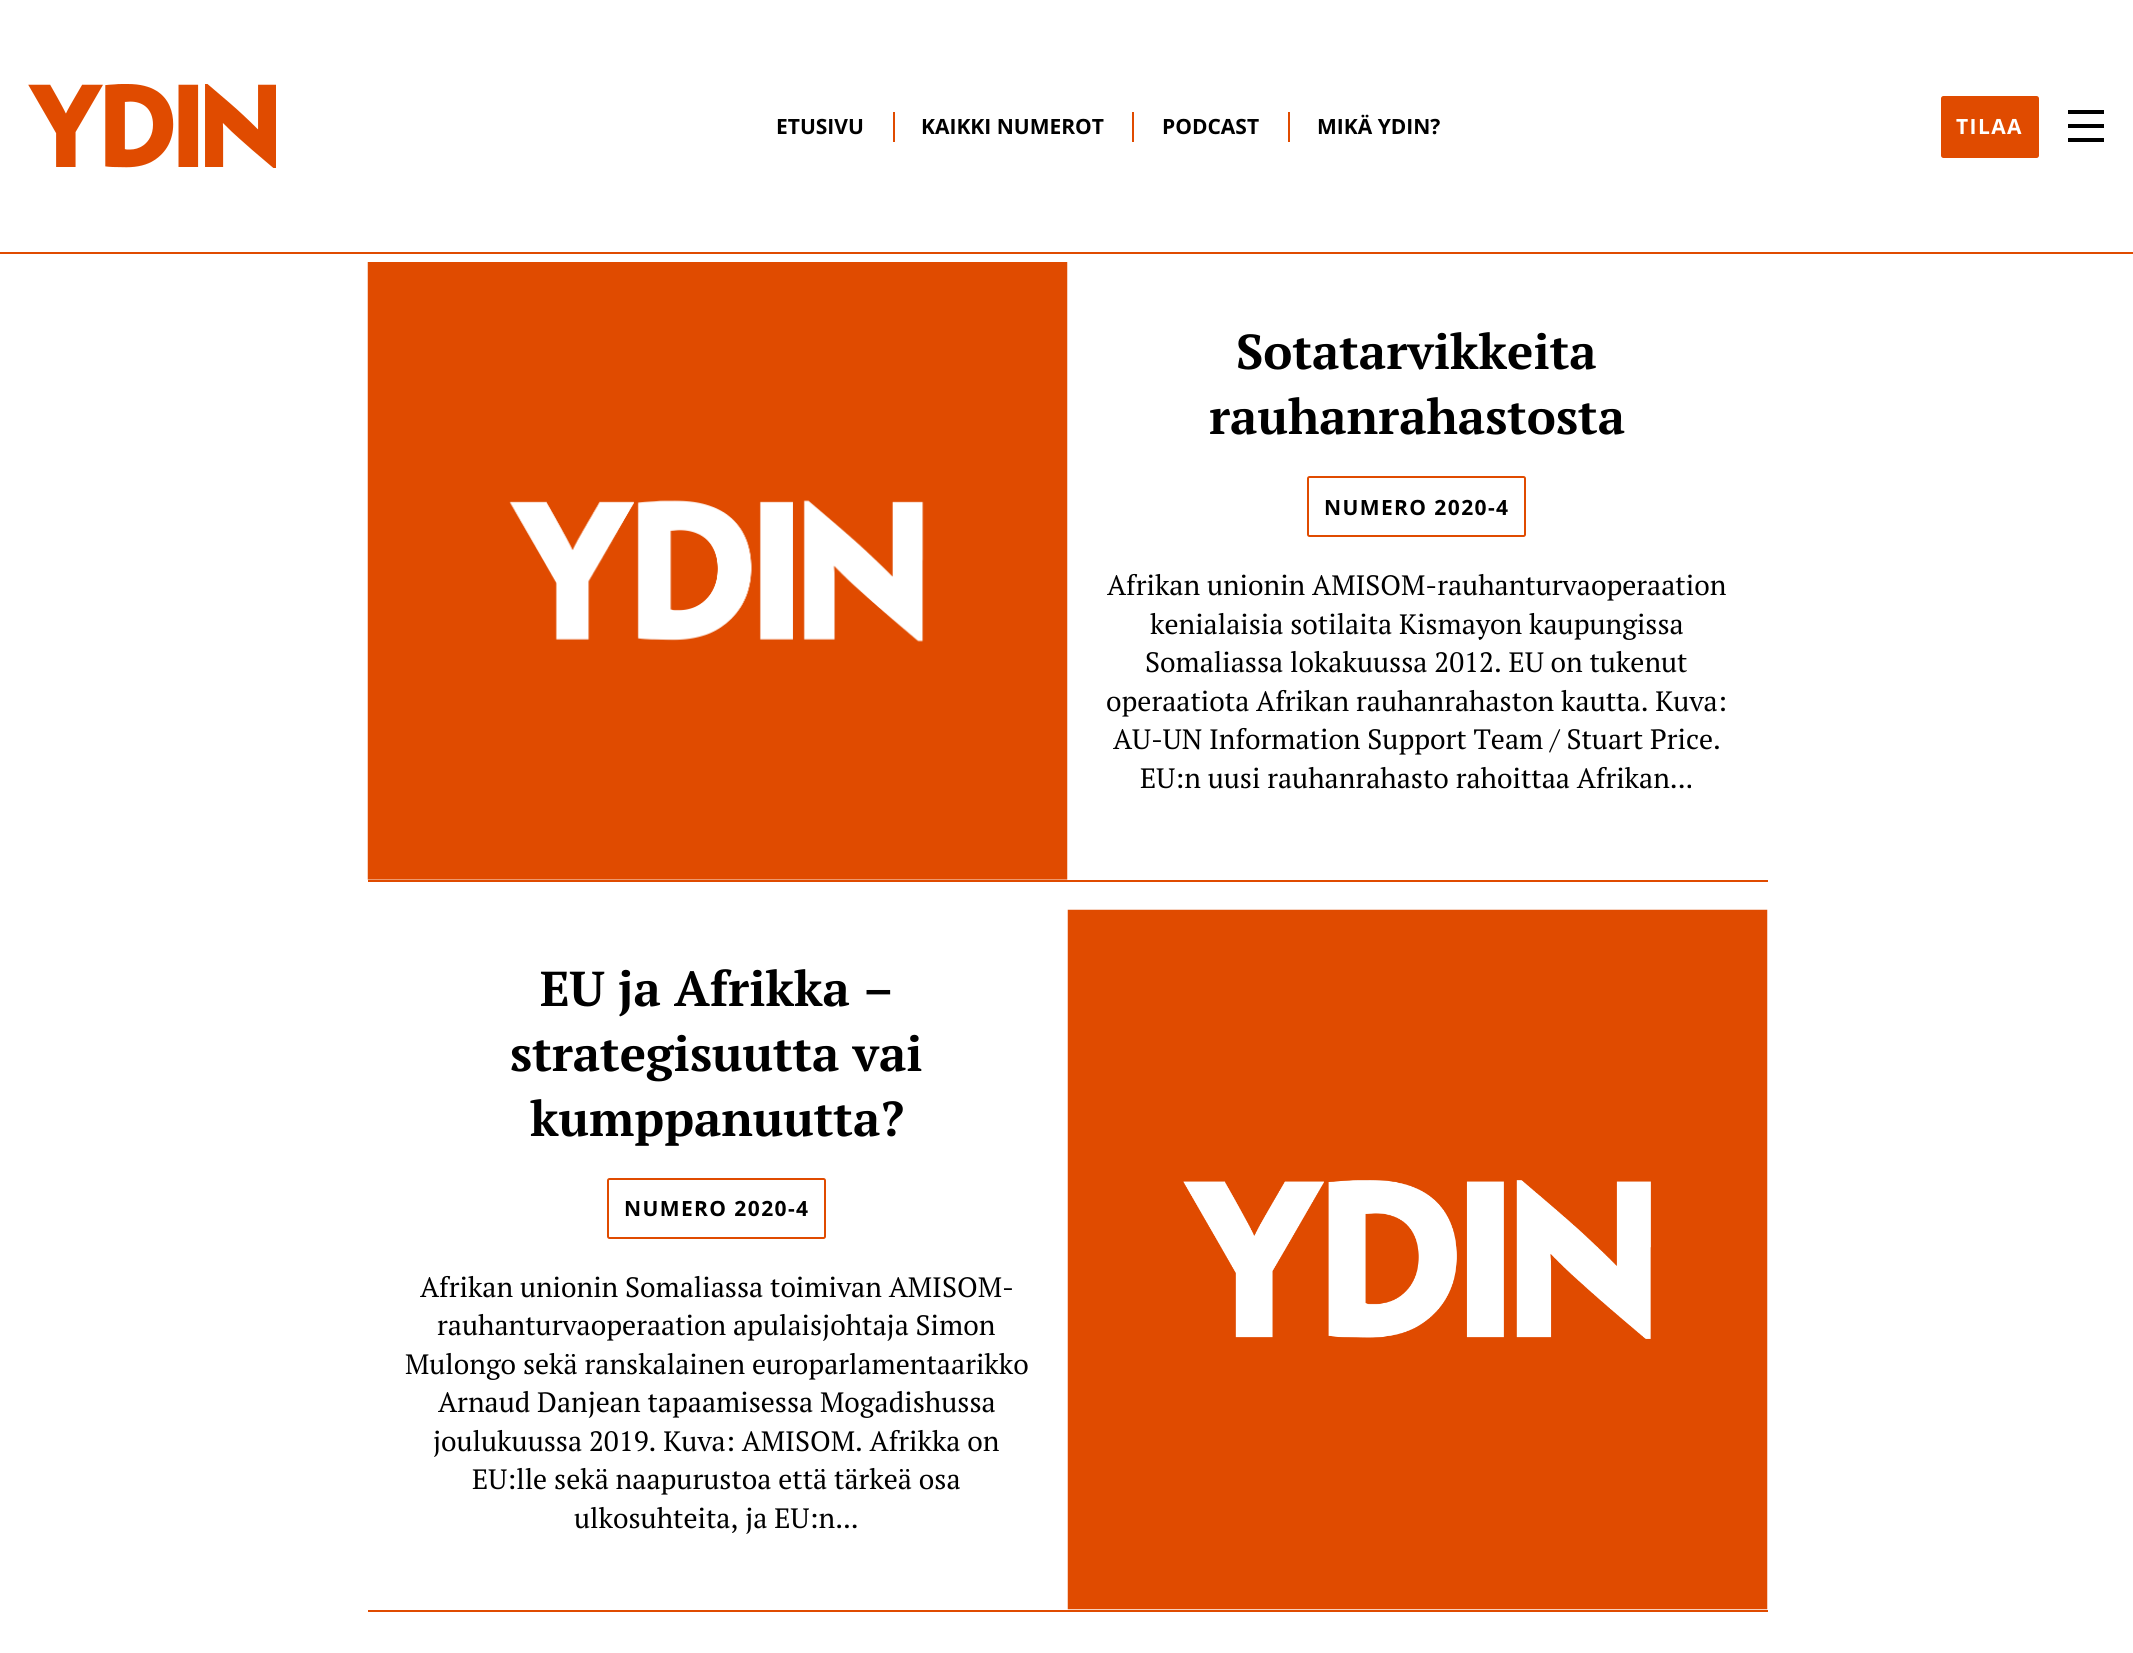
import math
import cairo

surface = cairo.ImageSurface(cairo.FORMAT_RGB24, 2133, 1653)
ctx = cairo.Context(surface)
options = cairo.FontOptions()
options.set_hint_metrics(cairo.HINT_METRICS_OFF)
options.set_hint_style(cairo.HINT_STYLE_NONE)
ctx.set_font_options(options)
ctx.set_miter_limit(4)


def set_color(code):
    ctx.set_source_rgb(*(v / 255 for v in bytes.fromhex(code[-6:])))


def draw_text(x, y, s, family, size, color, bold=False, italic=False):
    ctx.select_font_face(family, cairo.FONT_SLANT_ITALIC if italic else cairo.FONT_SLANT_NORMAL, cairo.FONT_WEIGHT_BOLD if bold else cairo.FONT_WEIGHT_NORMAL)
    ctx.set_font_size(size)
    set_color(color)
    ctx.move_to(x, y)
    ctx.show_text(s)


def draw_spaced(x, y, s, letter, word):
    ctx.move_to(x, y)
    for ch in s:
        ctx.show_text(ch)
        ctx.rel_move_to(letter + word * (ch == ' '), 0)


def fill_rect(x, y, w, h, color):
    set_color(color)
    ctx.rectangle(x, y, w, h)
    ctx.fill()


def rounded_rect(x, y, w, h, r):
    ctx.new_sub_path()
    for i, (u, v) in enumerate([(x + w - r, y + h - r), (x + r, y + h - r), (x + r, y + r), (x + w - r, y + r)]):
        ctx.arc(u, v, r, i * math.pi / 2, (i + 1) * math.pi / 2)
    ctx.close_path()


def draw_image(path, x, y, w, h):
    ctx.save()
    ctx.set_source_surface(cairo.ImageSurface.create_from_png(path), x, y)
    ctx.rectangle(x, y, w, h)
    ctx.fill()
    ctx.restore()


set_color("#ffffff")
ctx.paint()
fill_rect(0, 252, 2133, 2, "#e04b00")
draw_image("assets/img1.png", 28, 84, 248, 84)
fill_rect(893, 112, 2, 30, "#e04b00")
draw_text(776, 134, "ETUSIVU", "Open Sans", 21, "#000000", bold=True)
fill_rect(1132, 112, 2, 30, "#e04b00")
draw_text(921, 134, "KAIKKI NUMEROT", "Open Sans", 21, "#000000", bold=True)
fill_rect(1288, 112, 2, 30, "#e04b00")
draw_text(1162, 134, "PODCAST", "Open Sans", 21, "#000000", bold=True)
draw_text(1317, 134, "MIKÄ YDIN?", "Open Sans", 21, "#000000", bold=True)
set_color("#e04b00")
rounded_rect(1942, 97, 96, 60, 1.5)
ctx.fill_preserve()
ctx.stroke()
set_color("#ffffff")
draw_spaced(1956, 134, "TILAA", 1.4, 0)
fill_rect(2068, 124, 36, 4, "#000000")
fill_rect(2068, 110, 36, 4, "#000000")
fill_rect(2068, 138, 36, 4, "#000000")
fill_rect(368, 880, 1400, 2, "#e04b00")
draw_image("assets/img2.png", 367, 262, 701, 618)
draw_text(1236, 369, "Sotatarvikkeita", "PT Serif", 49, "#000000", bold=True)
draw_text(1209, 434, "rauhanrahastosta", "PT Serif", 49, "#000000", bold=True)
rounded_rect(1308, 477, 217, 59, 1.5)
set_color("#e04b00")
ctx.stroke()
ctx.select_font_face("Open Sans", cairo.FONT_SLANT_NORMAL, cairo.FONT_WEIGHT_BOLD)
ctx.set_font_size(21)
set_color("#000000")
draw_spaced(1324, 515, "NUMERO 2020-4", 1.4, 0)
draw_text(1107, 595, "Afrikan unionin AMISOM-rauhanturvaoperaation", "PT Serif", 28, "#000000")
draw_text(1150, 634, "kenialaisia sotilaita Kismayon kaupungissa", "PT Serif", 28, "#000000")
draw_text(1145, 672, "Somaliassa lokakuussa 2012. EU on tukenut", "PT Serif", 28, "#000000")
draw_text(1106, 711, "operaatiota Afrikan rauhanrahaston kautta. Kuva:", "PT Serif", 28, "#000000")
draw_text(1113, 749, "AU-UN Information Support Team / Stuart Price.", "PT Serif", 28, "#000000")
draw_text(1140, 788, "EU:n uusi rauhanrahasto rahoittaa Afrikan...", "PT Serif", 28, "#000000")
fill_rect(368, 1610, 1400, 2, "#e04b00")
draw_text(540, 1006, "EU ja Afrikka –", "PT Serif", 49, "#000000", bold=True)
draw_text(510, 1071, "strategisuutta vai", "PT Serif", 49, "#000000", bold=True)
draw_text(530, 1136, "kumppanuutta?", "PT Serif", 49, "#000000", bold=True)
rounded_rect(608, 1179, 217, 59, 1.5)
set_color("#e04b00")
ctx.stroke()
ctx.select_font_face("Open Sans", cairo.FONT_SLANT_NORMAL, cairo.FONT_WEIGHT_BOLD)
ctx.set_font_size(21)
set_color("#000000")
draw_spaced(624, 1216, "NUMERO 2020-4", 1.4, 0)
draw_text(420, 1297, "Afrikan unionin Somaliassa toimivan AMISOM-", "PT Serif", 28, "#000000")
draw_text(437, 1335, "rauhanturvaoperaation apulaisjohtaja Simon", "PT Serif", 28, "#000000")
draw_text(405, 1374, "Mulongo sekä ranskalainen europarlamentaarikko", "PT Serif", 28, "#000000")
draw_text(438, 1412, "Arnaud Danjean tapaamisessa Mogadishussa", "PT Serif", 28, "#000000")
draw_text(433, 1451, "joulukuussa 2019. Kuva: AMISOM. Afrikka on", "PT Serif", 28, "#000000")
draw_text(472, 1489, "EU:lle sekä naapurustoa että tärkeä osa", "PT Serif", 28, "#000000")
draw_text(574, 1528, "ulkosuhteita, ja EU:n...", "PT Serif", 28, "#000000")
draw_image("assets/img3.png", 1067, 909, 701, 701)
surface.write_to_png("output.png")
